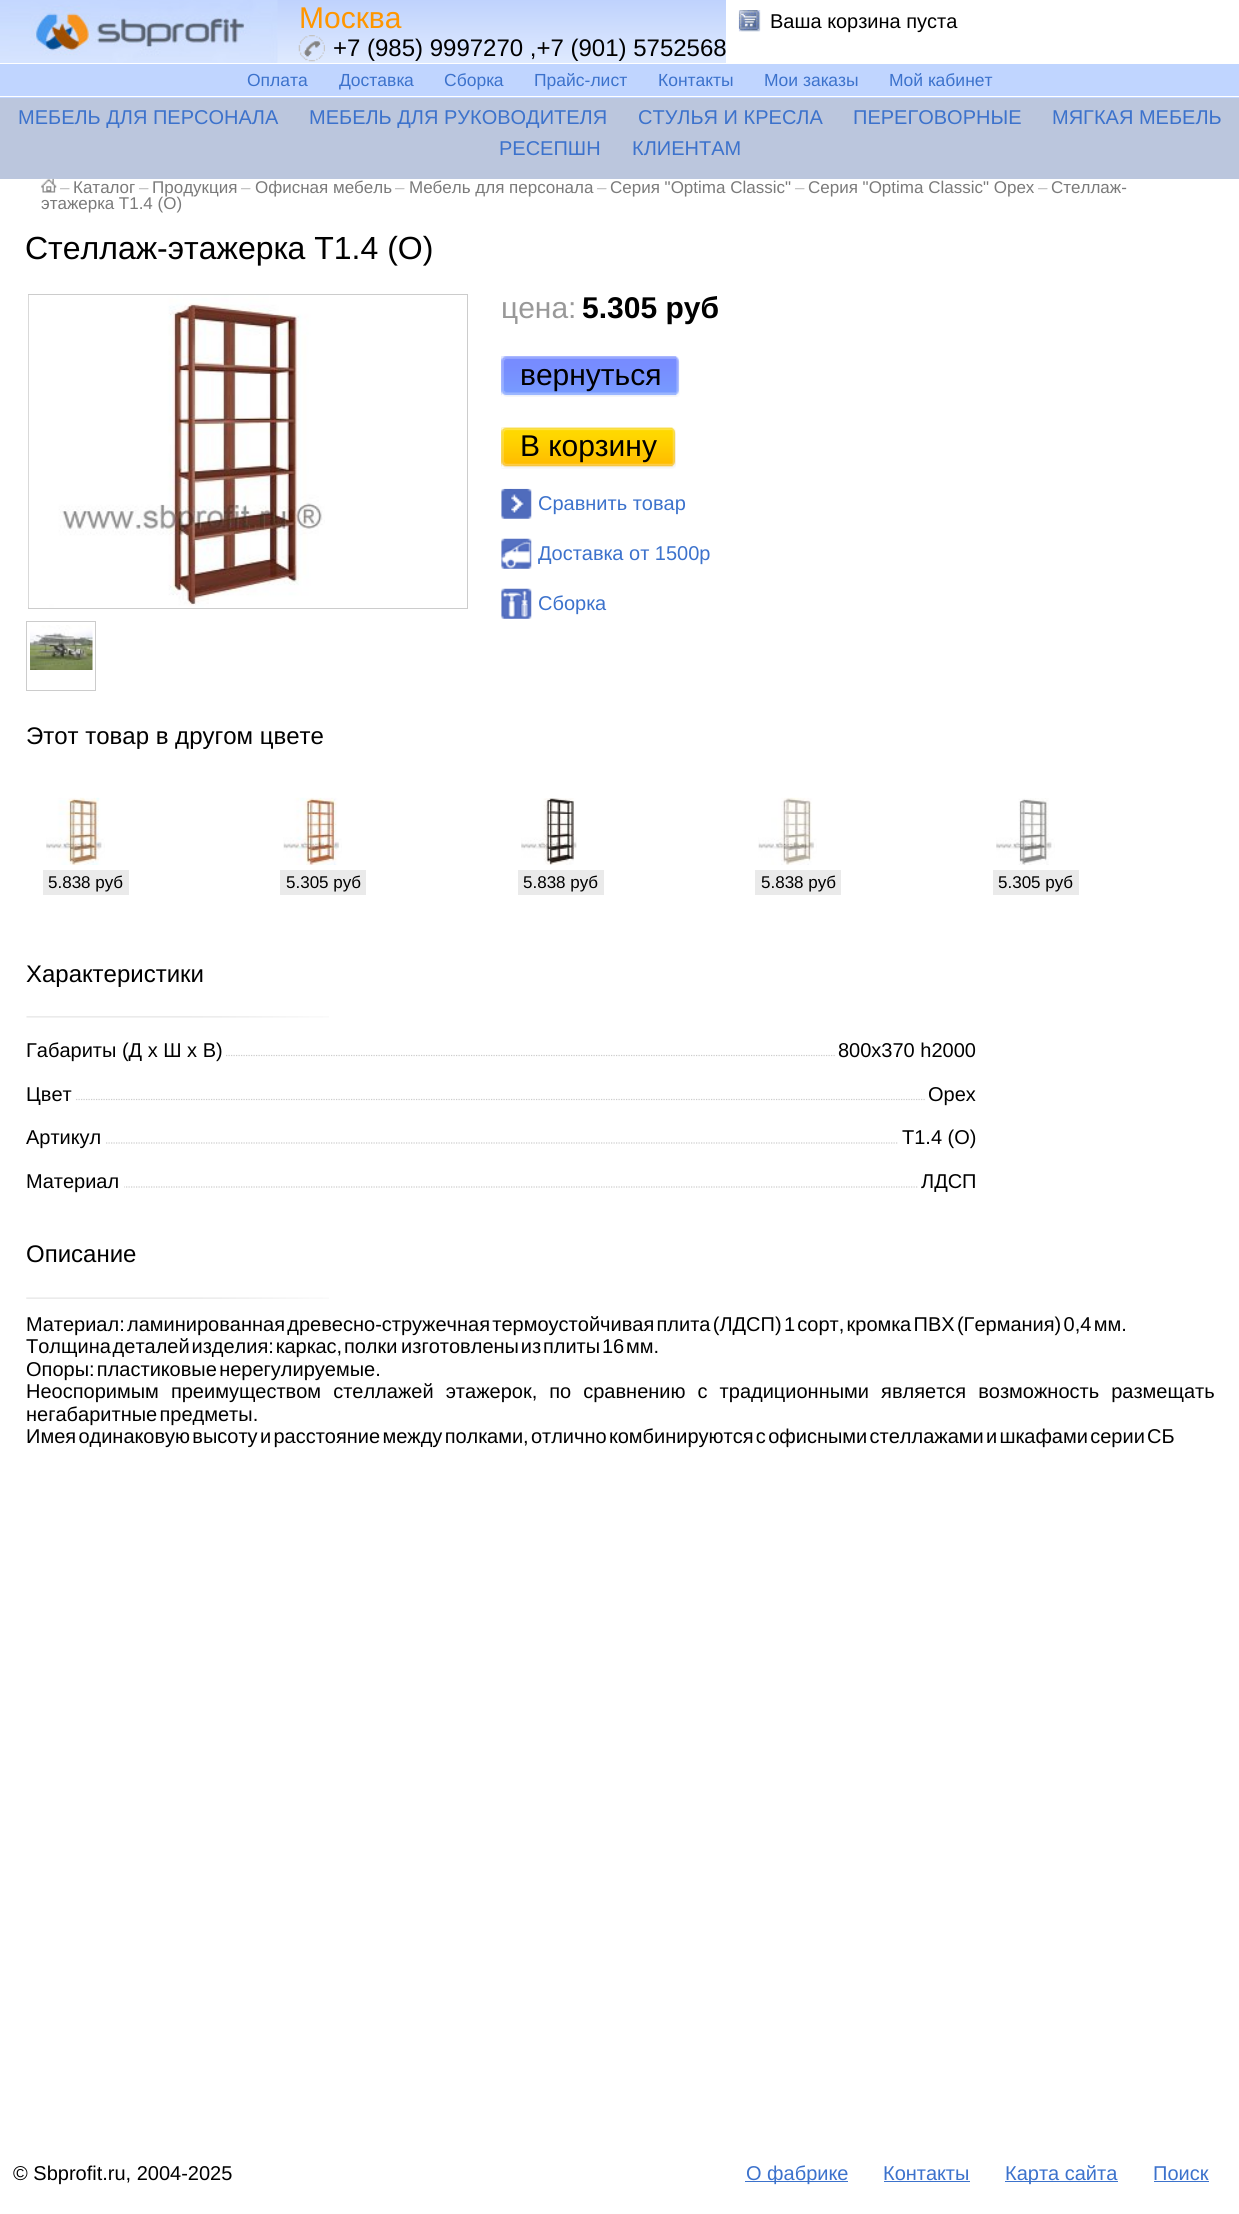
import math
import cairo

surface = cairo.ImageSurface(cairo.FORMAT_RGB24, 1239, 2214)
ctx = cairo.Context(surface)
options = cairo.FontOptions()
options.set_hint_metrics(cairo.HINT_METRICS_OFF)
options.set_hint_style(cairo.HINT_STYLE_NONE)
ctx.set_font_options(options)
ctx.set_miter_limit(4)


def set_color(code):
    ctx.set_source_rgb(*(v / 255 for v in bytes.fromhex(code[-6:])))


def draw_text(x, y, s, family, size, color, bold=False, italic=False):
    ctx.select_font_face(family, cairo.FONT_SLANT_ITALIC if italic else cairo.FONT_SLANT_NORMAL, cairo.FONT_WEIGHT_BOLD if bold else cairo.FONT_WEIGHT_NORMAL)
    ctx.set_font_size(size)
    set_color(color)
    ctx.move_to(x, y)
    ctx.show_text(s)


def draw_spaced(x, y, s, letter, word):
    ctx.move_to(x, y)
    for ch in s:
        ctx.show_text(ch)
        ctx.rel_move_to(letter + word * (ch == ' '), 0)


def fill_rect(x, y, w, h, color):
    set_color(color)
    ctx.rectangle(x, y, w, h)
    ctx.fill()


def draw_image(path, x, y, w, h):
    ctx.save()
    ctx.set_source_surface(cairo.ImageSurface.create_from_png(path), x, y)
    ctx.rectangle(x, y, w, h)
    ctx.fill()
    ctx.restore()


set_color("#ffffff")
ctx.paint()
gradient = cairo.LinearGradient(139, 63, 139, 0)
gradient.add_color_stop_rgba(0, 0.875, 0.918, 0.996, 1)
gradient.add_color_stop_rgba(1, 0.749, 0.824, 0.992, 1)
ctx.set_source(gradient)
ctx.rectangle(277, 0, 1, 63)
ctx.fill()
draw_image("assets/img1.png", 0, 0, 278, 63)
gradient = cairo.LinearGradient(502, 63, 502, 0)
gradient.add_color_stop_rgba(0, 0.875, 0.918, 0.996, 1)
gradient.add_color_stop_rgba(1, 0.749, 0.824, 0.992, 1)
ctx.set_source(gradient)
ctx.rectangle(278, 0, 448, 63)
ctx.fill()
draw_text(299, 28, "Москва", "Liberation Sans", 30, "#ff9600")
draw_image("assets/img2.png", 298, 35, 27, 27)
draw_text(333, 56, "+7 (985) 9997270 ,+7 (901) 5752568", "Liberation Sans", 24, "#000000")
draw_image("assets/img3.png", 738, 10, 23, 22)
draw_text(770, 28, "Ваша корзина пуста", "Liberation Sans", 20, "#000000")
fill_rect(0, 64, 1239, 34, "#c0d5ff")
fill_rect(0, 96, 1239, 1, "#ffffff")
draw_text(247, 86, "Оплата", "Liberation Sans", 17.5, "#3c72cc")
draw_text(339, 86, "Доставка", "Liberation Sans", 17.5, "#3c72cc")
draw_text(444, 86, "Сборка", "Liberation Sans", 17.5, "#3c72cc")
draw_text(534, 86, "Прайс-лист", "Liberation Sans", 17.5, "#3c72cc")
draw_text(658, 86, "Контакты", "Liberation Sans", 17.5, "#3c72cc")
draw_text(764, 86, "Мои заказы", "Liberation Sans", 17.5, "#3c72cc")
draw_text(889, 86, "Мой кабинет", "Liberation Sans", 17.5, "#3c72cc")
fill_rect(0, 98, 1239, 81, "#bbc6dd")
draw_text(18, 124, "МЕБЕЛЬ ДЛЯ ПЕРСОНАЛА", "Liberation Sans", 20, "#3c72cc")
draw_text(309, 124, "МЕБЕЛЬ ДЛЯ РУКОВОДИТЕЛЯ", "Liberation Sans", 20, "#3c72cc")
draw_text(638, 124, "СТУЛЬЯ И КРЕСЛА", "Liberation Sans", 20, "#3c72cc")
draw_text(853, 124, "ПЕРЕГОВОРНЫЕ", "Liberation Sans", 20, "#3c72cc")
draw_text(1052, 124, "МЯГКАЯ МЕБЕЛЬ", "Liberation Sans", 20, "#3c72cc")
draw_text(499, 155, "РЕСЕПШН", "Liberation Sans", 20, "#3c72cc")
draw_text(632, 155, "КЛИЕНТАМ", "Liberation Sans", 20, "#3c72cc")
draw_image("assets/img4.png", 41, 178, 16, 15)
draw_text(60, 193, "–", "Liberation Sans", 17, "#bcbcbc", italic=True)
draw_text(73, 193, "Каталог", "Liberation Sans", 17, "#7a7a7a")
draw_text(139, 193, "–", "Liberation Sans", 17, "#bcbcbc", italic=True)
draw_text(152, 193, "Продукция", "Liberation Sans", 17, "#7a7a7a")
draw_text(241, 193, "–", "Liberation Sans", 17, "#bcbcbc", italic=True)
draw_text(255, 193, "Офисная мебель", "Liberation Sans", 17, "#7a7a7a")
draw_text(395, 193, "–", "Liberation Sans", 17, "#bcbcbc", italic=True)
draw_text(409, 193, "Мебель для персонала", "Liberation Sans", 17, "#7a7a7a")
draw_text(597, 193, "–", "Liberation Sans", 17, "#bcbcbc", italic=True)
draw_text(610, 193, "Серия \"Optima Classic\"", "Liberation Sans", 17, "#7a7a7a")
draw_text(795, 193, "–", "Liberation Sans", 17, "#bcbcbc", italic=True)
draw_text(808, 193, "Серия \"Optima Classic\" Орех", "Liberation Sans", 17, "#7a7a7a")
draw_text(1038, 193, "–", "Liberation Sans", 17, "#bcbcbc", italic=True)
draw_text(1051, 193, "Стеллаж-", "Liberation Sans", 17, "#7a7a7a")
draw_text(41, 209, "этажерка Т1.4 (О)", "Liberation Sans", 17, "#7a7a7a")
draw_text(25, 259, "Стеллаж-этажерка Т1.4 (О)", "Liberation Sans", 32, "#000000")
ctx.rectangle(28.5, 294.5, 439, 314)
set_color("#cccccc")
ctx.set_line_width(1)
ctx.stroke()
draw_image("assets/img5.png", 28, 295, 297, 313)
draw_text(501, 318, "цена:", "Liberation Sans", 30, "#999999")
draw_text(582, 318, "5.305 руб", "Liberation Sans", 30, "#000000", bold=True)
draw_image("assets/img6.png", 501, 356, 179, 41)
draw_image("assets/img7.png", 501, 356, 176, 41)
draw_text(520, 385, "вернуться", "Liberation Sans", 30, "#000000")
draw_image("assets/img8.png", 501, 427, 175, 42)
draw_image("assets/img9.png", 501, 427, 172, 41)
draw_text(520, 456, "В корзину", "Liberation Sans", 30, "#000000")
draw_image("assets/img10.png", 501, 488, 31, 31)
draw_text(538, 510, "Сравнить товар", "Liberation Sans", 20, "#3c72cc")
draw_image("assets/img11.png", 501, 538, 31, 31)
draw_text(538, 560, "Доставка от 1500р", "Liberation Sans", 20, "#3c72cc")
draw_image("assets/img12.png", 501, 588, 31, 31)
draw_text(538, 610, "Сборка", "Liberation Sans", 20, "#3c72cc")
ctx.rectangle(26.5, 621.5, 69, 69)
set_color("#cccccc")
ctx.stroke()
draw_image("assets/img13.png", 30, 625, 63, 45)
draw_text(26, 744, "Этот товар в другом цвете", "Liberation Sans", 24, "#000000")
draw_image("assets/img14.png", 46, 797, 59, 68)
fill_rect(43, 870, 86, 25, "#eaeaea")
draw_text(48, 888, "5.838 руб", "Liberation Sans", 17, "#000000")
draw_image("assets/img15.png", 283, 797, 59, 68)
fill_rect(280, 870, 86, 25, "#eaeaea")
draw_text(286, 888, "5.305 руб", "Liberation Sans", 17, "#000000")
draw_image("assets/img16.png", 521, 798, 56, 67)
fill_rect(518, 870, 86, 25, "#eaeaea")
draw_text(523, 888, "5.838 руб", "Liberation Sans", 17, "#000000")
draw_image("assets/img17.png", 758, 797, 59, 68)
fill_rect(755, 870, 86, 25, "#eaeaea")
draw_text(761, 888, "5.838 руб", "Liberation Sans", 17, "#000000")
draw_image("assets/img18.png", 996, 798, 59, 67)
fill_rect(993, 870, 86, 25, "#eaeaea")
draw_text(998, 888, "5.305 руб", "Liberation Sans", 17, "#000000")
draw_text(26, 982, "Характеристики", "Liberation Sans", 24, "#000000")
draw_image("assets/img19.png", 26, 1016, 303, 2)
ctx.new_path()
ctx.move_to(26, 1055.5)
ctx.line_to(976, 1055.5)
set_color("#cccccc")
ctx.set_line_width(1.2)
ctx.set_dash([1.25, 1.25])
ctx.stroke()
fill_rect(26, 1054, 199, 3, "#ffffff")
draw_text(26, 1057, "Габариты (Д х Ш х В)", "Liberation Sans", 20, "#000000")
fill_rect(836, 1054, 139, 3, "#ffffff")
draw_text(838, 1057, "800x370 h2000", "Liberation Sans", 20, "#000000")
ctx.new_path()
ctx.move_to(26, 1099.5)
ctx.line_to(976, 1099.5)
set_color("#cccccc")
ctx.stroke()
fill_rect(26, 1098, 49, 3, "#ffffff")
draw_text(26, 1101, "Цвет", "Liberation Sans", 20, "#000000")
fill_rect(926, 1098, 49, 3, "#ffffff")
draw_text(928, 1101, "Орех", "Liberation Sans", 20, "#000000")
ctx.new_path()
ctx.move_to(26, 1143)
ctx.line_to(976, 1143)
set_color("#cccccc")
ctx.stroke()
fill_rect(26, 1142, 79, 2, "#ffffff")
draw_text(26, 1144, "Артикул", "Liberation Sans", 20, "#000000")
fill_rect(898, 1142, 77, 2, "#ffffff")
draw_text(902, 1144, "Т1.4 (О)", "Liberation Sans", 20, "#000000")
ctx.new_path()
ctx.move_to(26, 1187)
ctx.line_to(976, 1187)
set_color("#cccccc")
ctx.stroke()
fill_rect(26, 1186, 98, 2, "#ffffff")
draw_text(26, 1188, "Материал", "Liberation Sans", 20, "#000000")
fill_rect(918, 1186, 57, 2, "#ffffff")
draw_text(921, 1188, "ЛДСП", "Liberation Sans", 20, "#000000")
draw_text(26, 1262, "Описание", "Liberation Sans", 24, "#000000")
draw_image("assets/img20.png", 26, 1297, 303, 2)
ctx.set_font_size(20)
draw_spaced(26, 1331, "Материал: ламинированная древесно-стружечная термоустойчивая плита (ЛДСП) 1 сорт, кромка ПВХ (Германия) 0,4 мм.", 0, -3.25)
draw_spaced(26, 1353, "Толщина деталей изделия: каркас, полки  изготовлены из плиты 16 мм.", 0, -3.75)
draw_spaced(26, 1376, "Опоры: пластиковые нерегулируемые.", 0, -3.25)
draw_spaced(26, 1398, "Неоспоримым преимуществом стеллажей этажерок, по сравнению с традиционными является возможность размещать", 0, 6.5)
draw_spaced(26, 1421, "негабаритные предметы.", 0, -3.25)
draw_spaced(26, 1443, "Имея одинаковую высоту и расстояние между полками, отлично комбинируются с офисными стеллажами и шкафами серии СБ", 0, -3.25)
draw_text(13, 2180, "© Sbprofit.ru, 2004-2025", "Liberation Sans", 20, "#000000")
fill_rect(745, 2181, 103, 1, "#3c72cc")
draw_text(746, 2180, "О фабрике", "Liberation Sans", 20, "#3c72cc")
draw_text(883, 2180, "Контакты", "Liberation Sans", 20, "#3c72cc")
fill_rect(884, 2181, 86, 1, "#3c72cc")
fill_rect(1005, 2181, 113, 1, "#3c72cc")
draw_text(1005, 2180, "Карта сайта", "Liberation Sans", 20, "#3c72cc")
draw_text(1153, 2180, "Поиск", "Liberation Sans", 20, "#3c72cc")
fill_rect(1154, 2181, 55, 1, "#3c72cc")
surface.write_to_png("output.png")
